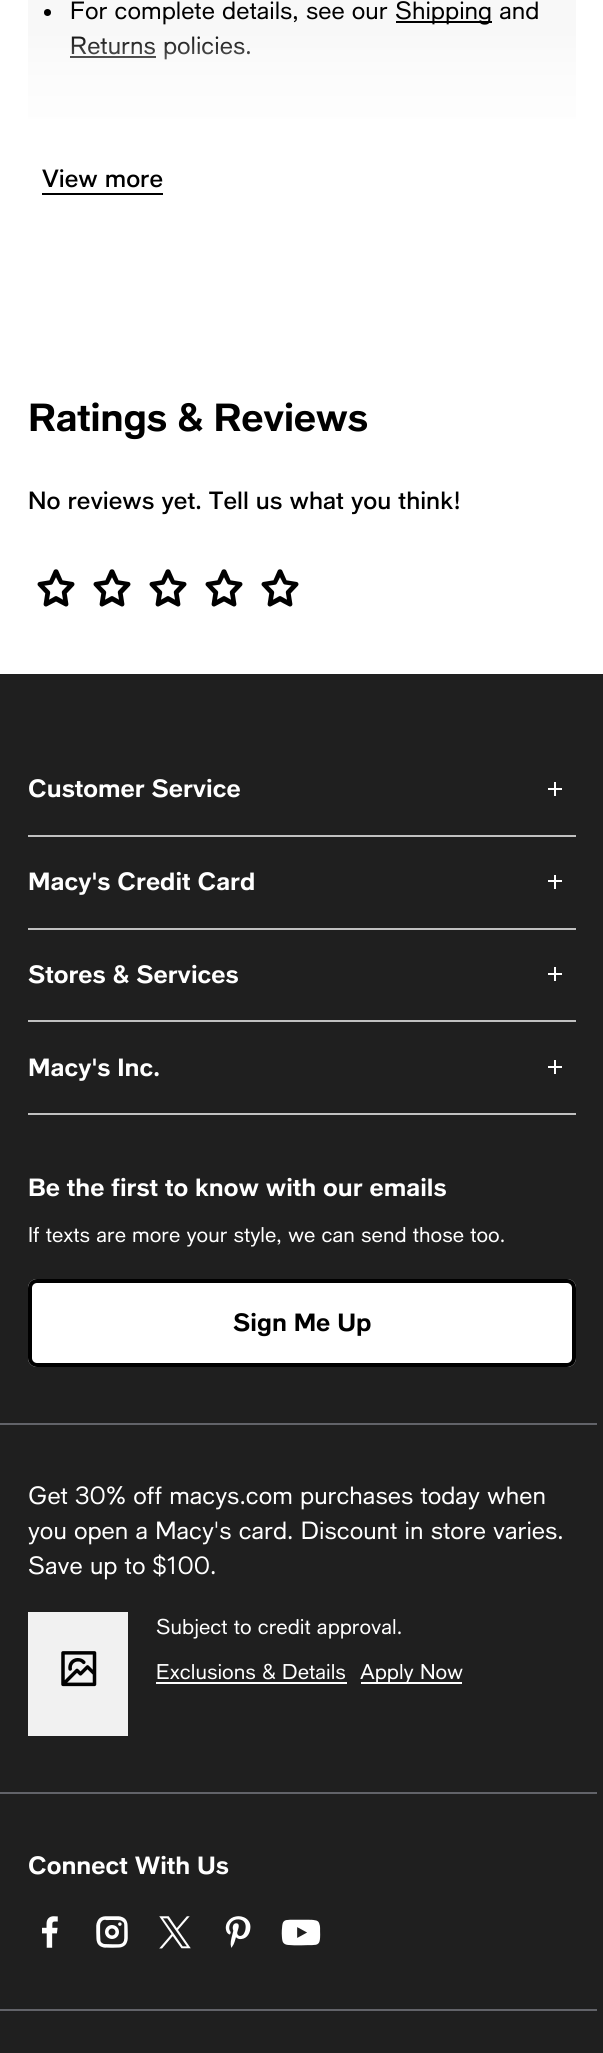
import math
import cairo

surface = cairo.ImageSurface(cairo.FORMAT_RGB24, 603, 2053)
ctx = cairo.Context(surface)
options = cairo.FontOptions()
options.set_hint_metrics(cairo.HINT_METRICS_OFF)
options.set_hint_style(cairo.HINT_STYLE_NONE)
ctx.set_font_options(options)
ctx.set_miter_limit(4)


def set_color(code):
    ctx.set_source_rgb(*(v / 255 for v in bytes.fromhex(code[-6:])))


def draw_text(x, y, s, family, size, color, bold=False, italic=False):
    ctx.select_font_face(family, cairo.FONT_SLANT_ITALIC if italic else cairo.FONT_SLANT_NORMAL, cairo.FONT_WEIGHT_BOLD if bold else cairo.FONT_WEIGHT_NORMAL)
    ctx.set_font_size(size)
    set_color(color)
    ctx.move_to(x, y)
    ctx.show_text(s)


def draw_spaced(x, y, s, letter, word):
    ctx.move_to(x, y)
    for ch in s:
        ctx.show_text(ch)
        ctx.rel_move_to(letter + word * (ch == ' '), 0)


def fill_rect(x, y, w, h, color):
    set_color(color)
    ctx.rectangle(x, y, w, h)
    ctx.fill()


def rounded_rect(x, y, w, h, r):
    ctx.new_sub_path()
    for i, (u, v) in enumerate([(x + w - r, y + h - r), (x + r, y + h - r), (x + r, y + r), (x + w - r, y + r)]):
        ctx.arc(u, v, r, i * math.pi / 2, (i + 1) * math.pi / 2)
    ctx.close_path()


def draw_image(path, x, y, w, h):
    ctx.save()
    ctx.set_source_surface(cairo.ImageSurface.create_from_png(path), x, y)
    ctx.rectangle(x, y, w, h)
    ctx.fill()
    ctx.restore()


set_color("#ffffff")
ctx.paint()
fill_rect(28, 0, 548, 119, "#f8f8f8")
set_color("#000000")
ctx.arc(47.5, 12.5, 3.5, 0, 2 * math.pi)
ctx.fill()
draw_text(70, 19, "For complete details, see our", "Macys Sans", 24.5, "#000000")
fill_rect(396, 21, 96, 2, "#000000")
draw_text(395, 19, "Shipping and", "Macys Sans", 24.5, "#000000")
fill_rect(70, 56, 86, 2, "#000000")
draw_text(70, 54, "Returns policies.", "Macys Sans", 24.5, "#000000")
gradient = cairo.LinearGradient(302, 28, 302, 196)
gradient.add_color_stop_rgba(0, 1, 1, 1, 0)
gradient.add_color_stop_rgba(0.28, 1, 1, 1, 0.5)
gradient.add_color_stop_rgba(0.72, 1, 1, 1, 1)
ctx.set_source(gradient)
ctx.rectangle(28, 36, 548, 83)
ctx.fill()
draw_text(42, 187, "View more", "Macys Sans Medium", 24.5, "#000000")
fill_rect(42, 193, 121, 2, "#000000")
ctx.select_font_face("Macys Sans", cairo.FONT_SLANT_NORMAL, cairo.FONT_WEIGHT_BOLD)
ctx.set_font_size(38.5)
draw_spaced(28, 431, "Ratings & Reviews", -0.4, 0)
draw_text(28, 509, "No reviews yet. Tell us what you think!", "Macys Sans Medium", 24.5, "#000000")
draw_image("assets/img1.png", 37, 569, 38, 38)
draw_image("assets/img1.png", 93, 569, 38, 38)
draw_image("assets/img1.png", 149, 569, 38, 38)
draw_image("assets/img1.png", 205, 569, 38, 38)
draw_image("assets/img1.png", 261, 569, 38, 38)
fill_rect(0, 674, 603, 1379, "#1f1f1f")
fill_rect(28, 835, 548, 2, "#c0c0c0")
draw_text(28, 797, "Customer Service", "Macys Sans", 24.5, "#ffffff", bold=True)
fill_rect(548, 788, 14, 2, "#ffffff")
fill_rect(554, 782, 2, 14, "#ffffff")
fill_rect(28, 928, 548, 2, "#c0c0c0")
draw_text(28, 890, "Macy's Credit Card", "Macys Sans", 24.5, "#ffffff", bold=True)
fill_rect(548, 880, 14, 2, "#ffffff")
fill_rect(554, 875, 2, 14, "#ffffff")
fill_rect(28, 1020, 548, 2, "#c0c0c0")
draw_text(28, 983, "Stores & Services", "Macys Sans", 24.5, "#ffffff", bold=True)
fill_rect(548, 973, 14, 2, "#ffffff")
fill_rect(554, 967, 2, 14, "#ffffff")
fill_rect(28, 1113, 548, 2, "#c0c0c0")
draw_text(28, 1076, "Macy's Inc.", "Macys Sans", 24.5, "#ffffff", bold=True)
fill_rect(548, 1066, 14, 2, "#ffffff")
fill_rect(554, 1060, 2, 14, "#ffffff")
draw_text(28, 1196, "Be the first to know with our emails", "Macys Sans", 24.5, "#ffffff", bold=True)
draw_text(28, 1242, "If texts are more your style, we can send those too.", "Macys Sans", 21, "#ffffff")
rounded_rect(28, 1279, 548, 88, 9)
ctx.fill()
rounded_rect(30, 1281, 544, 84, 7)
set_color("#000000")
ctx.set_line_width(4)
ctx.stroke()
draw_text(233, 1331, "Sign Me Up", "Macys Sans", 24.5, "#000000", bold=True)
fill_rect(0, 1423, 597, 2, "#626369")
draw_text(28, 1504, "Get 30% off macys.com purchases today when", "Macys Sans", 24.5, "#ffffff")
draw_text(28, 1539, "you open a Macy's card. Discount in store varies.", "Macys Sans", 24.5, "#ffffff")
draw_text(28, 1574, "Save up to $100.", "Macys Sans", 24.5, "#ffffff")
fill_rect(28, 1612, 100, 124, "#f1f1f1")
draw_image("assets/img2.png", 61, 1651, 36, 36)
draw_text(156, 1634, "Subject to credit approval.", "Macys Sans", 21, "#ffffff")
draw_text(156, 1679, "Exclusions & Details", "Macys Sans", 21, "#ffffff")
fill_rect(156, 1682, 191, 2, "#ffffff")
fill_rect(361, 1682, 101, 2, "#ffffff")
draw_text(360, 1679, "Apply Now", "Macys Sans", 21, "#ffffff")
fill_rect(0, 1792, 597, 2, "#626369")
draw_text(28, 1874, "Connect With Us", "Macys Sans", 24.5, "#ffffff", bold=True)
draw_image("assets/img3.png", 42, 1916, 16, 32)
draw_image("assets/img4.png", 96, 1916, 32, 32)
draw_image("assets/img5.png", 159, 1916, 32, 33)
draw_image("assets/img6.png", 225, 1916, 26, 32)
draw_image("assets/img7.png", 281, 1919, 40, 27)
fill_rect(0, 2009, 597, 2, "#626369")
surface.write_to_png("output.png")
